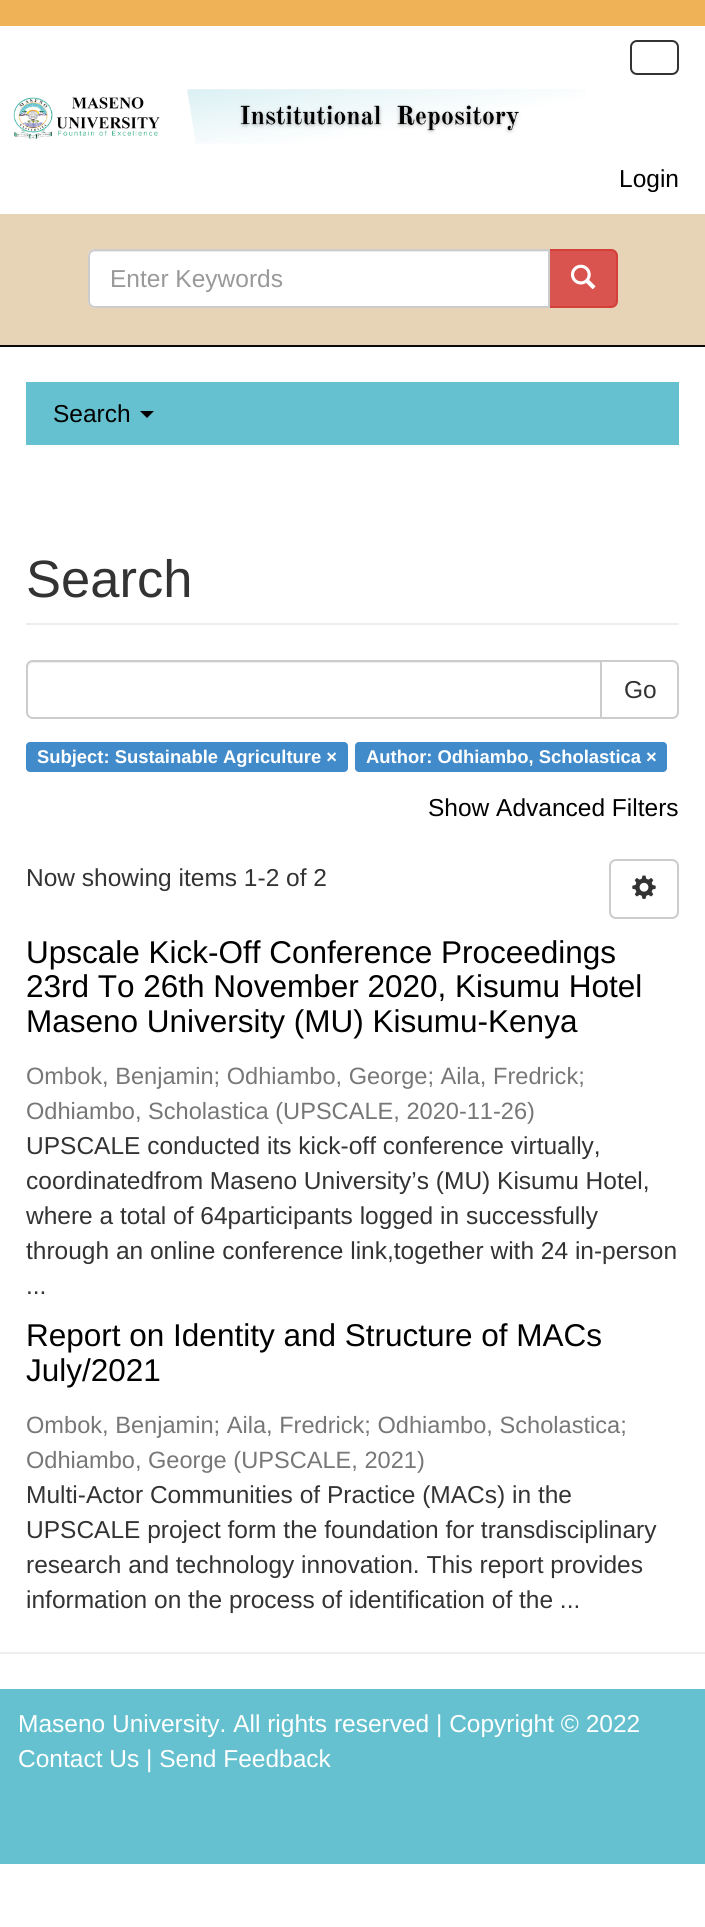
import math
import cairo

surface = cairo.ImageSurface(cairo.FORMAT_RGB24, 705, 1927)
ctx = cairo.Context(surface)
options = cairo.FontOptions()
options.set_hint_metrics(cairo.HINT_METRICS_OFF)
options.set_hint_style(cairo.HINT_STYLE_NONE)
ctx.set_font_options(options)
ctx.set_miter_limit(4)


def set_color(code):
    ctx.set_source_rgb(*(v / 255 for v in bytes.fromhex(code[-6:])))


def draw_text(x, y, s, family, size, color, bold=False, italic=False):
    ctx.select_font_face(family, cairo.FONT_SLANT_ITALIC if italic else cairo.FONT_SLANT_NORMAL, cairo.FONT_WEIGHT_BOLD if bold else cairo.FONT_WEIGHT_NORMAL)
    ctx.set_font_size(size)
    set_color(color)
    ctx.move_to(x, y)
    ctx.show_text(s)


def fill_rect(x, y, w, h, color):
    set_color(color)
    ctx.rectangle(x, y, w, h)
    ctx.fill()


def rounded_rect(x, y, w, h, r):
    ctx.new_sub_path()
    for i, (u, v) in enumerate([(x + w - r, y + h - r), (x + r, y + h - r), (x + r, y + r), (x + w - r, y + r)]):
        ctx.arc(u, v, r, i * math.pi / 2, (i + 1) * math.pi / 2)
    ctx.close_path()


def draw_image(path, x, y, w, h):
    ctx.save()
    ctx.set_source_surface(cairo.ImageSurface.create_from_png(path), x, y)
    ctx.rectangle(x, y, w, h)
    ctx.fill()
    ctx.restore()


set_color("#ffffff")
ctx.paint()
fill_rect(0, 0, 705, 26, "#f0b256")
fill_rect(0, 345, 705, 2, "#090909")
rounded_rect(631, 41, 47, 33, 6)
set_color("#333333")
ctx.stroke()
draw_image("assets/img1.png", 13, 89, 572, 55)
draw_text(619, 187, "Login", "Liberation Sans", 24.5, "#000000")
fill_rect(0, 214, 705, 131, "#e7d3b6")
set_color("#d9534f")
ctx.new_path()
ctx.move_to(549, 250)
ctx.line_to(611, 250)
ctx.curve_to(614.5, 250, 617, 252.5, 617, 256)
ctx.line_to(617, 301)
ctx.curve_to(617, 304.5, 614.5, 307, 611, 307)
ctx.line_to(549, 307)
ctx.close_path()
ctx.fill_preserve()
set_color("#d43f3a")
ctx.stroke()
set_color("#ffffff")
ctx.new_path()
ctx.move_to(95, 249)
ctx.line_to(550, 249)
ctx.line_to(550, 308)
ctx.line_to(95, 308)
ctx.curve_to(91, 308, 88, 305, 88, 301)
ctx.line_to(88, 256)
ctx.curve_to(88, 252, 91, 249, 95, 249)
ctx.close_path()
ctx.fill()
set_color("#ececec")
ctx.new_path()
ctx.move_to(94, 252)
ctx.line_to(548, 252)
ctx.line_to(548, 250)
ctx.line_to(94, 250)
ctx.curve_to(90, 250, 89, 254, 89, 257)
ctx.curve_to(89, 254, 92, 252, 94, 252)
ctx.close_path()
ctx.fill()
ctx.new_path()
ctx.move_to(95, 250)
ctx.line_to(549, 250)
ctx.line_to(549, 307)
ctx.line_to(95, 307)
ctx.curve_to(91.5, 307, 89, 304.5, 89, 301)
ctx.line_to(89, 256)
ctx.curve_to(89, 252.5, 91.5, 250, 95, 250)
ctx.close_path()
set_color("#cccccc")
ctx.stroke()
draw_text(110, 287, "Enter Keywords", "Liberation Sans", 24.5, "#999999")
draw_image("assets/img2.png", 571, 264, 25, 26)
fill_rect(26, 382, 653, 63, "#65c1cf")
draw_text(53, 422, "Search", "Liberation Sans", 24.5, "#000000")
ctx.new_path()
ctx.move_to(140, 411)
ctx.line_to(154, 411)
ctx.line_to(147, 418)
ctx.close_path()
ctx.fill()
fill_rect(26, 623, 653, 2, "#eeeeee")
draw_text(26, 597, "Search", "Liberation Sans", 52.5, "#333333")
ctx.new_path()
ctx.move_to(601, 661)
ctx.line_to(672, 661)
ctx.curve_to(675.5, 661, 678, 663.5, 678, 667)
ctx.line_to(678, 712)
ctx.curve_to(678, 715.5, 675.5, 718, 672, 718)
ctx.line_to(601, 718)
ctx.close_path()
set_color("#cccccc")
ctx.stroke()
set_color("#ffffff")
ctx.new_path()
ctx.move_to(33, 660)
ctx.line_to(602, 660)
ctx.line_to(602, 719)
ctx.line_to(33, 719)
ctx.curve_to(29, 719, 26, 716, 26, 712)
ctx.line_to(26, 667)
ctx.curve_to(26, 663, 29, 660, 33, 660)
ctx.close_path()
ctx.fill()
set_color("#ececec")
ctx.new_path()
ctx.move_to(33, 663)
ctx.line_to(600, 663)
ctx.line_to(600, 662)
ctx.line_to(33, 662)
ctx.curve_to(30, 662, 28, 665, 28, 668)
ctx.curve_to(28, 666, 30, 663, 33, 663)
ctx.close_path()
ctx.fill()
ctx.new_path()
ctx.move_to(33, 661)
ctx.line_to(601, 661)
ctx.line_to(601, 718)
ctx.line_to(33, 718)
ctx.curve_to(29.5, 718, 27, 715.5, 27, 712)
ctx.line_to(27, 667)
ctx.curve_to(27, 663.5, 29.5, 661, 33, 661)
ctx.close_path()
set_color("#cccccc")
ctx.stroke()
draw_text(624, 698, "Go", "Liberation Sans", 24.5, "#333333")
set_color("#428bca")
rounded_rect(26, 742, 322, 30, 4)
ctx.fill()
draw_text(37, 763, "Subject: Sustainable Agriculture ×", "Liberation Sans", 18.4, "#ffffff", bold=True)
set_color("#428bca")
rounded_rect(355, 742, 312, 30, 4)
ctx.fill()
draw_text(366, 763, "Author: Odhiambo, Scholastica ×", "Liberation Sans", 18.4, "#ffffff", bold=True)
draw_text(428, 816, "Show Advanced Filters", "Liberation Sans", 24.5, "#000000")
draw_text(26, 886, "Now showing items 1-2 of 2", "Liberation Sans", 24.5, "#333333")
rounded_rect(610, 860, 68, 58, 6)
set_color("#cccccc")
ctx.stroke()
draw_image("assets/img3.png", 632, 875, 24, 24)
draw_text(26, 963, "Upscale Kick-Off Conference Proceedings", "Liberation Sans", 31.5, "#000000")
draw_text(26, 997, "23rd To 26th November 2020, Kisumu Hotel", "Liberation Sans", 31.5, "#000000")
draw_text(26, 1032, "Maseno University (MU) Kisumu-Kenya", "Liberation Sans", 31.5, "#000000")
draw_text(26, 1084, "Ombok, Benjamin; Odhiambo, George; Aila, Fredrick;", "Liberation Sans", 23.6, "#777777")
draw_text(26, 1119, "Odhiambo, Scholastica (UPSCALE, 2020-11-26)", "Liberation Sans", 23.6, "#777777")
draw_text(26, 1154, "UPSCALE conducted its kick-off conference virtually,", "Liberation Sans", 24.5, "#333333")
draw_text(26, 1189, "coordinatedfrom Maseno University’s (MU) Kisumu Hotel,", "Liberation Sans", 24.5, "#333333")
draw_text(26, 1224, "where a total of 64participants logged in successfully", "Liberation Sans", 24.5, "#333333")
draw_text(26, 1259, "through an online conference link,together with 24 in-person", "Liberation Sans", 24.5, "#333333")
draw_text(26, 1294, "...", "Liberation Sans", 24.5, "#333333")
draw_text(26, 1346, "Report on Identity and Structure of MACs", "Liberation Sans", 31.5, "#000000")
draw_text(26, 1381, "July/2021", "Liberation Sans", 31.5, "#000000")
draw_text(26, 1433, "Ombok, Benjamin; Aila, Fredrick; Odhiambo, Scholastica;", "Liberation Sans", 23.6, "#777777")
draw_text(26, 1468, "Odhiambo, George (UPSCALE, 2021)", "Liberation Sans", 23.6, "#777777")
draw_text(26, 1503, "Multi-Actor Communities of Practice (MACs) in the", "Liberation Sans", 24.5, "#333333")
draw_text(26, 1538, "UPSCALE project form the foundation for transdisciplinary", "Liberation Sans", 24.5, "#333333")
draw_text(26, 1573, "research and technology innovation. This report provides", "Liberation Sans", 24.5, "#333333")
draw_text(26, 1608, "information on the process of identification of the ...", "Liberation Sans", 24.5, "#333333")
fill_rect(0, 1652, 705, 2, "#eeeeee")
fill_rect(0, 1689, 705, 175, "#65c1cf")
draw_text(18, 1732, "Maseno University. All rights reserved | Copyright © 2022", "Liberation Sans", 24.5, "#ffffff")
draw_text(18, 1767, "Contact Us | Send Feedback", "Liberation Sans", 24.5, "#ffffff")
surface.write_to_png("output.png")
